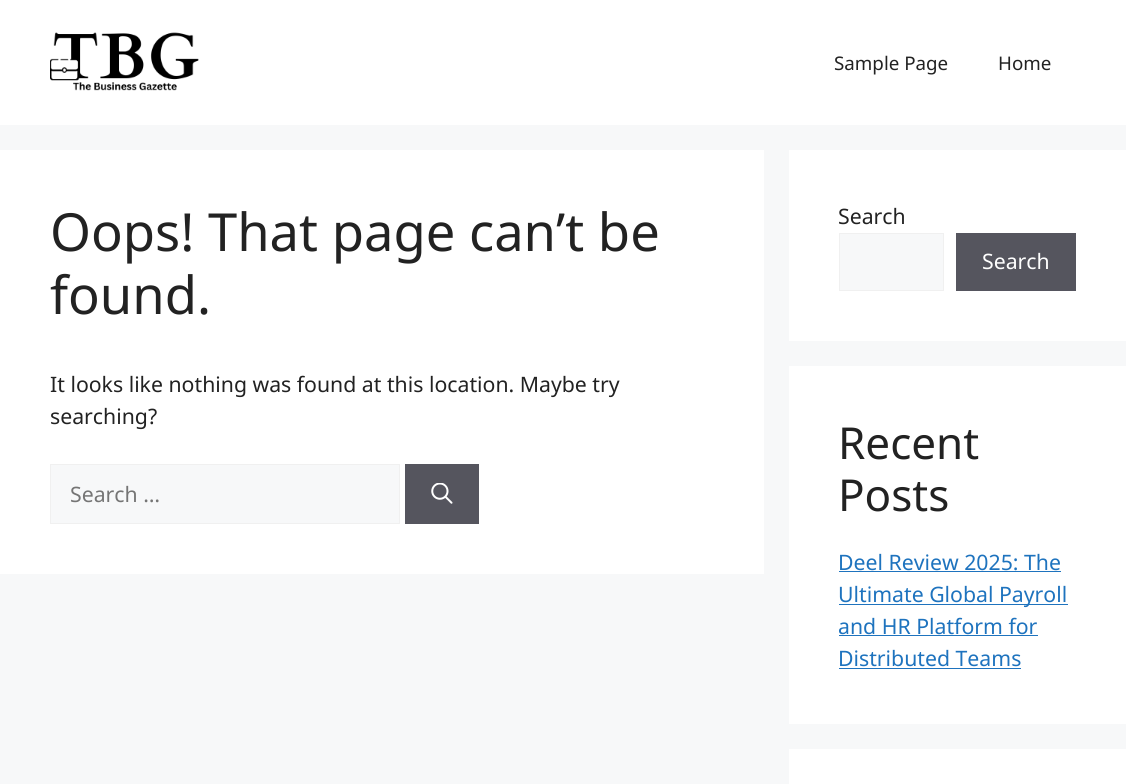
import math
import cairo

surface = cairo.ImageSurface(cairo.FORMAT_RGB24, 1126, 784)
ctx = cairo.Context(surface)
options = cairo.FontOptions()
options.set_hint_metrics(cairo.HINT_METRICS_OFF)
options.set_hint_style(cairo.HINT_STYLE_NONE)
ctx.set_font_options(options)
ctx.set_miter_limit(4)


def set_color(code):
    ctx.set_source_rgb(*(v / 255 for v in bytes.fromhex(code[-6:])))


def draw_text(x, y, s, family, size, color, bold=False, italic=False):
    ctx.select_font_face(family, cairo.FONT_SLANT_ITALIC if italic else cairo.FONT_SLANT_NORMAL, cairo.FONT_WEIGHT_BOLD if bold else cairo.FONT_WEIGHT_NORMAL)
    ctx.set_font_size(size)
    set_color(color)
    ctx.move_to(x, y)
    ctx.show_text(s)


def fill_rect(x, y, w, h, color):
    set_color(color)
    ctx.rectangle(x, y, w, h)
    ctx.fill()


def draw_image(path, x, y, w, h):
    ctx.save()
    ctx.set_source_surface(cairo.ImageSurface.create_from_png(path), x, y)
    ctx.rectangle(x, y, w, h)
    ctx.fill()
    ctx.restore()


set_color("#f7f8f9")
ctx.paint()
fill_rect(0, 0, 1126, 125, "#ffffff")
draw_image("assets/img1.png", 50, 32, 149, 59)
draw_text(834, 70, "Sample Page", "Noto Sans", 18.75, "#222222")
draw_text(998, 70, "Home", "Noto Sans", 18.75, "#222222")
fill_rect(0, 150, 764, 424, "#ffffff")
draw_text(50, 251, "Oops! That page can’t be", "Noto Sans", 52.5, "#222222")
draw_text(50, 314, "found.", "Noto Sans", 52.5, "#222222")
draw_text(50, 392, "It looks like nothing was found at this location. Maybe try", "Noto Sans", 21.25, "#222222")
draw_text(50, 424, "searching?", "Noto Sans", 21.25, "#222222")
set_color("#f7f8f9")
ctx.rectangle(50.5, 464.5, 349, 59)
ctx.fill_preserve()
set_color("#f0f0f0")
ctx.set_line_width(1)
ctx.stroke()
draw_text(70, 502, "Search …", "Noto Sans", 21.25, "#757575")
fill_rect(405, 464, 74, 60, "#55555e")
draw_image("assets/img2.png", 431, 483, 22, 21)
fill_rect(789, 150, 337, 191, "#ffffff")
draw_text(838, 224, "Search", "Noto Sans", 21.25, "#222222")
set_color("#f7f8f9")
ctx.rectangle(839.5, 233.5, 104, 57)
ctx.fill_preserve()
set_color("#f0f0f0")
ctx.stroke()
fill_rect(956, 233, 120, 58, "#55555e")
draw_text(982, 269, "Search", "Noto Sans", 21.25, "#ffffff")
fill_rect(789, 366, 337, 358, "#ffffff")
draw_text(838, 459, "Recent", "Noto Sans", 44, "#222222")
draw_text(838, 511, "Posts", "Noto Sans", 44, "#222222")
draw_text(838, 570, "Deel Review 2025: The", "Noto Sans", 21.25, "#1e73be")
fill_rect(839, 571, 222, 1, "#1e73be")
fill_rect(839, 604, 229, 1, "#1e73be")
draw_text(838, 602, "Ultimate Global Payroll", "Noto Sans", 21.25, "#1e73be")
draw_text(838, 634, "and HR Platform for", "Noto Sans", 21.25, "#1e73be")
fill_rect(839, 635, 199, 1, "#1e73be")
draw_text(838, 666, "Distributed Teams", "Noto Sans", 21.25, "#1e73be")
fill_rect(839, 668, 182, 1, "#1e73be")
fill_rect(789, 749, 337, 35, "#ffffff")
surface.write_to_png("output.png")
